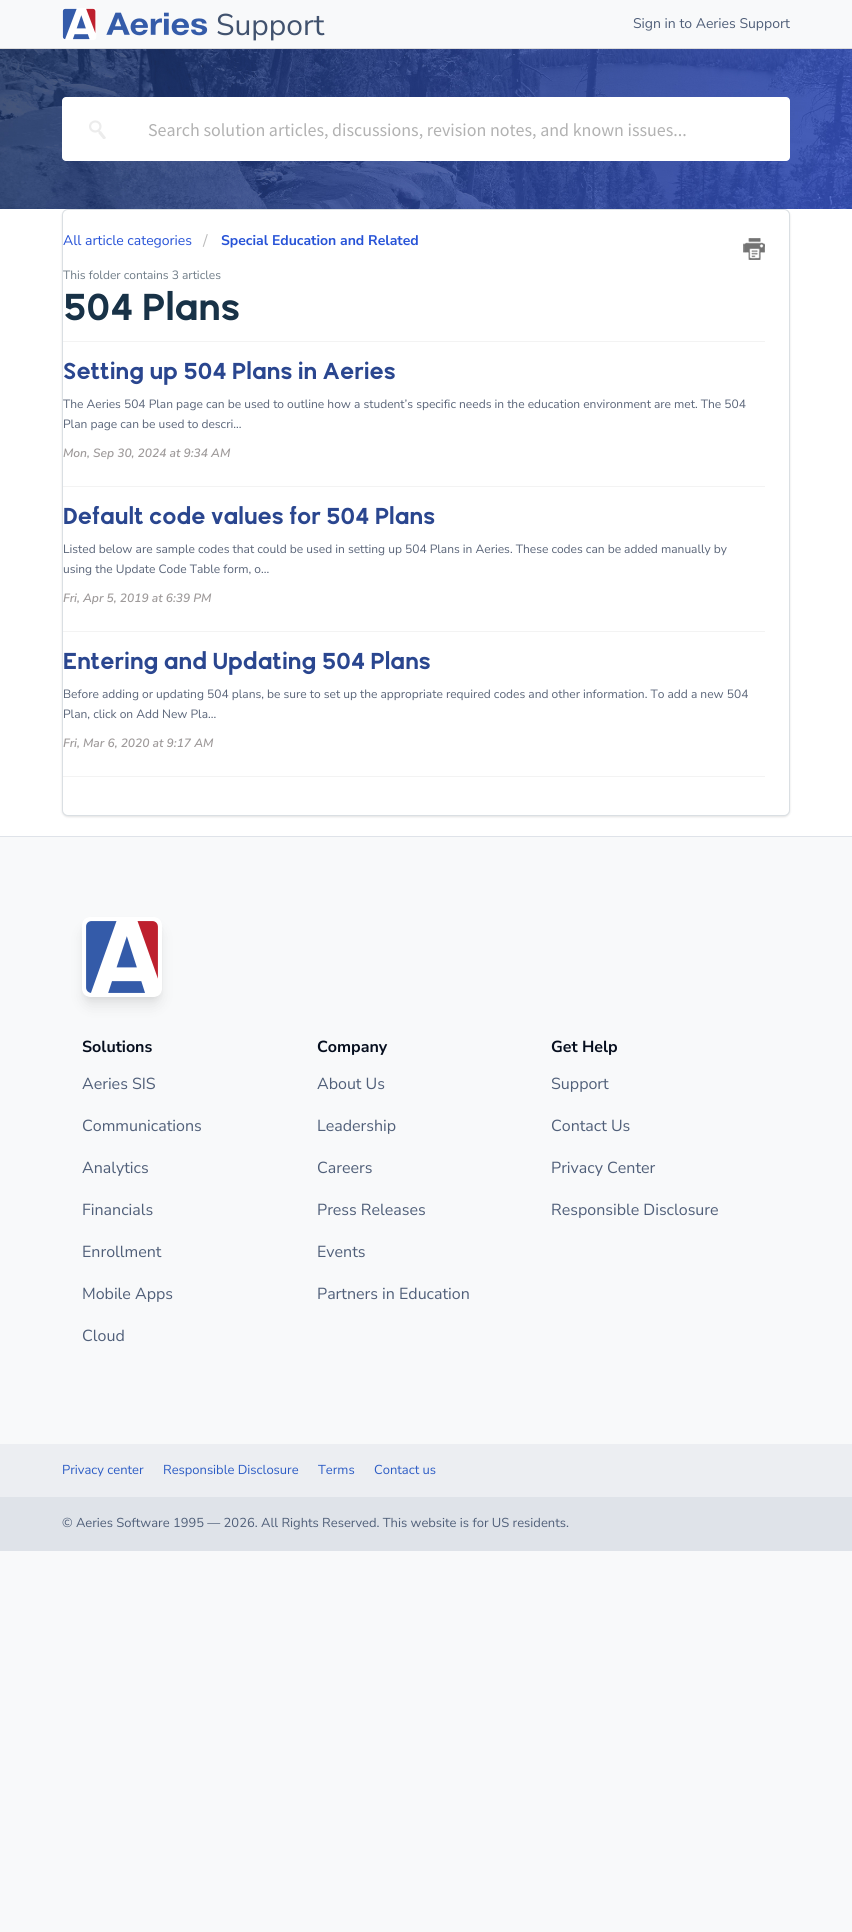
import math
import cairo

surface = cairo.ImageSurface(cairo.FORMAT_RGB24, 852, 1932)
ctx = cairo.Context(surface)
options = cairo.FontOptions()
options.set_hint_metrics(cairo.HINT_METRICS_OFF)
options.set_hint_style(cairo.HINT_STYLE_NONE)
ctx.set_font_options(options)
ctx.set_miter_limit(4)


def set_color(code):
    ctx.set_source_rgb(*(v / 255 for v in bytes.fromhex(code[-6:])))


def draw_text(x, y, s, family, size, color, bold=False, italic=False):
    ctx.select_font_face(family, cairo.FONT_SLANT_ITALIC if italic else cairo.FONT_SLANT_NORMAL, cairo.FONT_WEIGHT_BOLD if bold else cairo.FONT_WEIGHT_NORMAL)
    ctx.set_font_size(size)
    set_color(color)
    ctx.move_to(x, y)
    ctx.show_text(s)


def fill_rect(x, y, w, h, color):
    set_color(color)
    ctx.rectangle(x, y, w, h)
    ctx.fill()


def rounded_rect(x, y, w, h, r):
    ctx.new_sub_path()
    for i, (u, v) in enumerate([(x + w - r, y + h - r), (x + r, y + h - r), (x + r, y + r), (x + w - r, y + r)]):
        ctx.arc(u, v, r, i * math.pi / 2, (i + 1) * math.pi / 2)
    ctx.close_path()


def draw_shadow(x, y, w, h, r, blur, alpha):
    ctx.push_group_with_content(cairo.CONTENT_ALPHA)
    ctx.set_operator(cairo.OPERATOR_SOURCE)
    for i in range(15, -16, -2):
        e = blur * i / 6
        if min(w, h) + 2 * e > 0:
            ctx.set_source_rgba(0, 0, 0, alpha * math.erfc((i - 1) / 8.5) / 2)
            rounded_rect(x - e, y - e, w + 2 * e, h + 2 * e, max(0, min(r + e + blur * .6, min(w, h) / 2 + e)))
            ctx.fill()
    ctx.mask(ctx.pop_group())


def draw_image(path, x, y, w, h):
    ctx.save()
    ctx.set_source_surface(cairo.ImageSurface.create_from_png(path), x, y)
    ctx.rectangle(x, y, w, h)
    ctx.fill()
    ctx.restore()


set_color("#f8f9fa")
ctx.paint()
fill_rect(0, 48, 852, 1, "#dcdcdc")
draw_image("assets/img1.png", 62, 8, 146, 32)
draw_text(216, 35, "Support", "Nunito Sans", 30, "#41526e")
draw_text(633, 28, "Sign in to Aeries Support", "Nunito Sans", 14, "#505f79")
draw_image("assets/img2.png", 0, 49, 852, 160)
set_color("#ffffff")
rounded_rect(62, 97, 728, 64, 4)
ctx.fill()
draw_image("assets/img3.png", 89, 120, 17, 19)
draw_text(148, 136, "Search solution articles, discussions, revision notes, and known issues...", "Source Sans Pro", 18, "#b2b2b2")
fill_rect(0, 209, 852, 627, "#ffffff")
set_color("#3f3f44")
draw_shadow(62, 210, 728, 607, 6, 1, 0.15)
set_color("#ffffff")
rounded_rect(62.5, 209.5, 727, 606, 5.5)
ctx.fill_preserve()
set_color("#dadfe3")
ctx.set_line_width(1)
ctx.stroke()
draw_text(63, 245, "All article categories", "Nunito Sans", 14, "#2753d7")
draw_text(203, 246, "/", "Nunito Sans", 16, "#bbbbbb")
draw_text(221, 245, "Special Education and Related", "Nunito Sans", 14, "#2753d7", bold=True)
draw_image("assets/img4.png", 743, 238, 22, 22)
draw_text(63, 279, "This folder contains 3 articles", "Nunito Sans", 12, "#6f7c87")
draw_text(63, 320, "504 Plans", "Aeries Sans", 39, "#183247", bold=True)
fill_rect(63, 776, 702, 1, "#f3f3f3")
fill_rect(63, 341, 702, 1, "#f3f3f3")
draw_text(63, 379, "Setting up 504 Plans in Aeries", "Aeries Sans", 24, "#2a468f", bold=True)
draw_text(63, 408, "The Aeries 504 Plan page can be used to outline how a student’s specific needs in the education environment are met. The 504", "Nunito Sans", 12, "#596478")
draw_text(63, 428, "Plan page can be used to descri...", "Nunito Sans", 12, "#596478")
draw_text(63, 457, "Mon, Sep 30, 2024 at 9:34 AM", "Nunito Sans SemiBold", 12, "#9e9a9a", italic=True)
fill_rect(63, 486, 702, 1, "#f3f3f3")
draw_text(63, 524, "Default code values for 504 Plans", "Aeries Sans", 24, "#2a468f", bold=True)
draw_text(63, 553, "Listed below are sample codes that could be used in setting up 504 Plans in Aeries. These codes can be added manually by", "Nunito Sans", 12, "#596478")
draw_text(63, 573, "using the Update Code Table form, o...", "Nunito Sans", 12, "#596478")
draw_text(63, 602, "Fri, Apr 5, 2019 at 6:39 PM", "Nunito Sans SemiBold", 12, "#9e9a9a", italic=True)
fill_rect(63, 631, 702, 1, "#f3f3f3")
draw_text(63, 669, "Entering and Updating 504 Plans", "Aeries Sans", 24, "#2a468f", bold=True)
draw_text(63, 698, "Before adding or updating 504 plans, be sure to set up the appropriate required codes and other information. To add a new 504", "Nunito Sans", 12, "#596478")
draw_text(63, 718, "Plan, click on Add New Pla...", "Nunito Sans", 12, "#596478")
draw_text(63, 747, "Fri, Mar 6, 2020 at 9:17 AM", "Nunito Sans SemiBold", 12, "#9e9a9a", italic=True)
fill_rect(0, 836, 852, 1, "#dfe3e9")
set_color("#000000")
draw_shadow(84, 923, 76, 76, 6, 3, 0.05)
draw_shadow(85, 930, 74, 74, 5, 7.5, 0.1)
draw_image("assets/img5.png", 82, 917, 80, 80)
draw_text(82, 1052, "Solutions", "Nunito Sans", 16, "#060e1e", bold=True)
draw_text(82, 1089, "Aeries SIS", "Nunito Sans", 16, "#505f79")
draw_text(82, 1131, "Communications", "Nunito Sans", 16, "#505f79")
draw_text(82, 1173, "Analytics", "Nunito Sans", 16, "#505f79")
draw_text(82, 1215, "Financials", "Nunito Sans", 16, "#505f79")
draw_text(82, 1257, "Enrollment", "Nunito Sans", 16, "#505f79")
draw_text(82, 1299, "Mobile Apps", "Nunito Sans", 16, "#505f79")
draw_text(82, 1341, "Cloud", "Nunito Sans", 16, "#505f79")
draw_text(317, 1052, "Company", "Nunito Sans", 16, "#060e1e", bold=True)
draw_text(317, 1089, "About Us", "Nunito Sans", 16, "#505f79")
draw_text(317, 1131, "Leadership", "Nunito Sans", 16, "#505f79")
draw_text(317, 1173, "Careers", "Nunito Sans", 16, "#505f79")
draw_text(317, 1215, "Press Releases", "Nunito Sans", 16, "#505f79")
draw_text(317, 1257, "Events", "Nunito Sans", 16, "#505f79")
draw_text(317, 1299, "Partners in Education", "Nunito Sans", 16, "#505f79")
draw_text(551, 1052, "Get Help", "Nunito Sans", 16, "#060e1e", bold=True)
draw_text(551, 1089, "Support", "Nunito Sans", 16, "#505f79")
draw_text(551, 1131, "Contact Us", "Nunito Sans", 16, "#505f79")
draw_text(551, 1173, "Privacy Center", "Nunito Sans", 16, "#505f79")
draw_text(551, 1215, "Responsible Disclosure", "Nunito Sans", 16, "#505f79")
fill_rect(0, 1444, 852, 53, "#eceef2")
draw_text(62, 1474, "Privacy center", "Nunito Sans", 12.95, "#2c5cc5")
draw_text(163, 1474, "Responsible Disclosure", "Nunito Sans", 12.95, "#2c5cc5")
draw_text(318, 1474, "Terms", "Nunito Sans", 12.95, "#2c5cc5")
draw_text(374, 1474, "Contact us", "Nunito Sans", 12.95, "#2c5cc5")
fill_rect(0, 1497, 852, 54, "#dfe3e9")
draw_text(62, 1527, "© Aeries Software 1995 — 2026. All Rights Reserved. This website is for US residents.", "Nunito Sans", 12.95, "#505f79")
surface.write_to_png("output.png")
